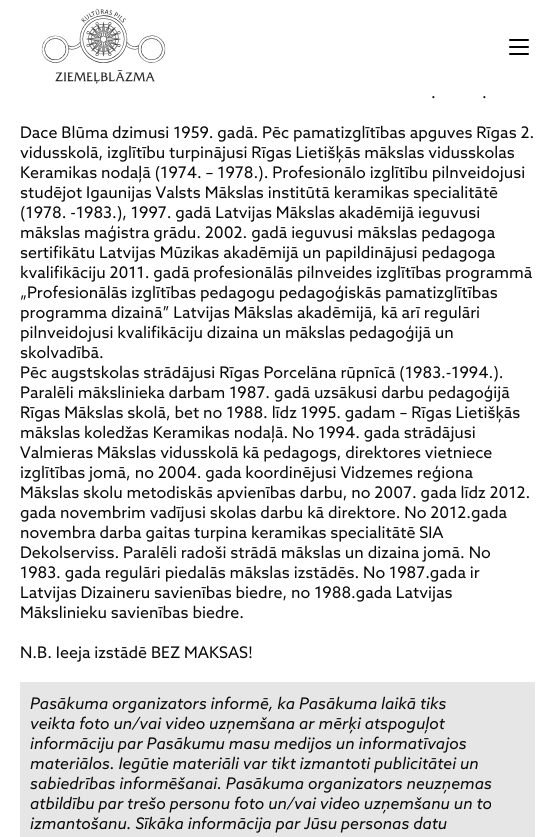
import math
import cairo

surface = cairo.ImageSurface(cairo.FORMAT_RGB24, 555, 837)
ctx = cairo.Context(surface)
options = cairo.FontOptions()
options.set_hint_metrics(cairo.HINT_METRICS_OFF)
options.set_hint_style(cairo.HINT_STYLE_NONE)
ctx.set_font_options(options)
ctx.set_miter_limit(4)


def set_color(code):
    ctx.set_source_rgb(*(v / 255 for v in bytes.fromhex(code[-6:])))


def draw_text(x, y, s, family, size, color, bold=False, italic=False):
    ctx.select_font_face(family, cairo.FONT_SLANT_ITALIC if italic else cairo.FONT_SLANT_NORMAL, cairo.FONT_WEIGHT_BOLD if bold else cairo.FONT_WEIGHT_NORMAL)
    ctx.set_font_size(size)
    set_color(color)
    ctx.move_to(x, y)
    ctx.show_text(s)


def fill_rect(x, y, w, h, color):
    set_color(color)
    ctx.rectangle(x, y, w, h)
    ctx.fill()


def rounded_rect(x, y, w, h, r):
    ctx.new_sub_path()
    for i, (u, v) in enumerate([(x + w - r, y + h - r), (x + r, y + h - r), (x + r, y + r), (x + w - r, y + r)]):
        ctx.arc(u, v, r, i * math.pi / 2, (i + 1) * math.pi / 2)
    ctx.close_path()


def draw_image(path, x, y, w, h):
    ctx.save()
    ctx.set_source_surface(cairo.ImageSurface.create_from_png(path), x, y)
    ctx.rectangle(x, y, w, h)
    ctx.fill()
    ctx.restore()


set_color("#ffffff")
ctx.paint()
draw_image("assets/img1.png", 41, 9, 125, 75)
set_color("#000000")
rounded_rect(509, 39, 20, 2, 1)
ctx.fill()
rounded_rect(509, 53, 20, 2, 1)
ctx.fill()
rounded_rect(509, 46, 20, 2, 1)
ctx.fill()
draw_text(431, 98, ".", "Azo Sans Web", 16, "#0a0a0a")
draw_text(482, 98, ".", "Azo Sans Web", 16, "#0a0a0a")
draw_text(20, 138, "Dace Blūma dzimusi 1959. gadā. Pēc pamatizglītības apguves Rīgas 2.", "Azo Sans Web", 16, "#0a0a0a")
draw_text(20, 158, "vidusskolā, izglītību turpinājusi Rīgas Lietišķās mākslas vidusskolas", "Azo Sans Web", 16, "#0a0a0a")
draw_text(20, 178, "Keramikas nodaļā (1974. – 1978.). Profesionālo izglītību pilnveidojusi", "Azo Sans Web", 16, "#0a0a0a")
draw_text(20, 198, "studējot Igaunijas Valsts Mākslas institūtā keramikas specialitātē", "Azo Sans Web", 16, "#0a0a0a")
draw_text(20, 218, "(1978. -1983.), 1997. gadā Latvijas Mākslas akadēmijā ieguvusi", "Azo Sans Web", 16, "#0a0a0a")
draw_text(20, 238, "mākslas maģistra grādu. 2002. gadā ieguvusi mākslas pedagoga", "Azo Sans Web", 16, "#0a0a0a")
draw_text(20, 258, "sertifikātu Latvijas Mūzikas akadēmijā un papildinājusi pedagoga", "Azo Sans Web", 16, "#0a0a0a")
draw_text(20, 278, "kvalifikāciju 2011. gadā profesionālās pilnveides izglītības programmā", "Azo Sans Web", 16, "#0a0a0a")
draw_text(20, 298, "„Profesionālās izglītības pedagogu pedagoģiskās pamatizglītības", "Azo Sans Web", 16, "#0a0a0a")
draw_text(20, 318, "programma dizainā” Latvijas Mākslas akadēmijā, kā arī regulāri", "Azo Sans Web", 16, "#0a0a0a")
draw_text(20, 338, "pilnveidojusi kvalifikāciju dizaina un mākslas pedagoģijā un", "Azo Sans Web", 16, "#0a0a0a")
draw_text(20, 358, "skolvadībā.", "Azo Sans Web", 16, "#0a0a0a")
draw_text(20, 378, "Pēc augstskolas strādājusi Rīgas Porcelāna rūpnīcā (1983.-1994.).", "Azo Sans Web", 16, "#0a0a0a")
draw_text(20, 398, "Paralēli mākslinieka darbam 1987. gadā uzsākusi darbu pedagoģijā", "Azo Sans Web", 16, "#0a0a0a")
draw_text(20, 418, "Rīgas Mākslas skolā, bet no 1988. līdz 1995. gadam – Rīgas Lietišķās", "Azo Sans Web", 16, "#0a0a0a")
draw_text(20, 438, "mākslas koledžas Keramikas nodaļā. No 1994. gada strādājusi", "Azo Sans Web", 16, "#0a0a0a")
draw_text(20, 458, "Valmieras Mākslas vidusskolā kā pedagogs, direktores vietniece", "Azo Sans Web", 16, "#0a0a0a")
draw_text(20, 478, "izglītības jomā, no 2004. gada koordinējusi Vidzemes reģiona", "Azo Sans Web", 16, "#0a0a0a")
draw_text(20, 498, "Mākslas skolu metodiskās apvienības darbu, no 2007. gada līdz 2012.", "Azo Sans Web", 16, "#0a0a0a")
draw_text(20, 518, "gada novembrim vadījusi skolas darbu kā direktore. No 2012.gada", "Azo Sans Web", 16, "#0a0a0a")
draw_text(20, 538, "novembra darba gaitas turpina keramikas specialitātē SIA", "Azo Sans Web", 16, "#0a0a0a")
draw_text(20, 558, "Dekolserviss. Paralēli radoši strādā mākslas un dizaina jomā. No", "Azo Sans Web", 16, "#0a0a0a")
draw_text(20, 578, "1983. gada regulāri piedalās mākslas izstādēs. No 1987.gada ir", "Azo Sans Web", 16, "#0a0a0a")
draw_text(20, 598, "Latvijas Dizaineru savienības biedre, no 1988.gada Latvijas", "Azo Sans Web", 16, "#0a0a0a")
draw_text(20, 618, "Mākslinieku savienības biedre.", "Azo Sans Web", 16, "#0a0a0a")
draw_text(20, 658, "N.B. Ieeja izstādē BEZ MAKSAS!", "Azo Sans Web", 16, "#0a0a0a")
fill_rect(20, 682, 515, 155, "#e6e6e6")
draw_text(30, 709, "Pasākuma organizators informē, ka Pasākuma laikā tiks", "Azo Sans Web", 16, "#0a0a0a", italic=True)
draw_text(30, 729, "veikta foto un/vai video uzņemšana ar mērķi atspoguļot", "Azo Sans Web", 16, "#0a0a0a", italic=True)
draw_text(30, 749, "informāciju par Pasākumu masu medijos un informatīvajos", "Azo Sans Web", 16, "#0a0a0a", italic=True)
draw_text(30, 769, "materiālos. Iegūtie materiāli var tikt izmantoti publicitātei un", "Azo Sans Web", 16, "#0a0a0a", italic=True)
draw_text(30, 789, "sabiedrības informēšanai. Pasākuma organizators neuzņemas", "Azo Sans Web", 16, "#0a0a0a", italic=True)
draw_text(30, 809, "atbildību par trešo personu foto un/vai video uzņemšanu un to", "Azo Sans Web", 16, "#0a0a0a", italic=True)
draw_text(30, 829, "izmantošanu. Sīkāka informācija par Jūsu personas datu", "Azo Sans Web", 16, "#0a0a0a", italic=True)
surface.write_to_png("output.png")
